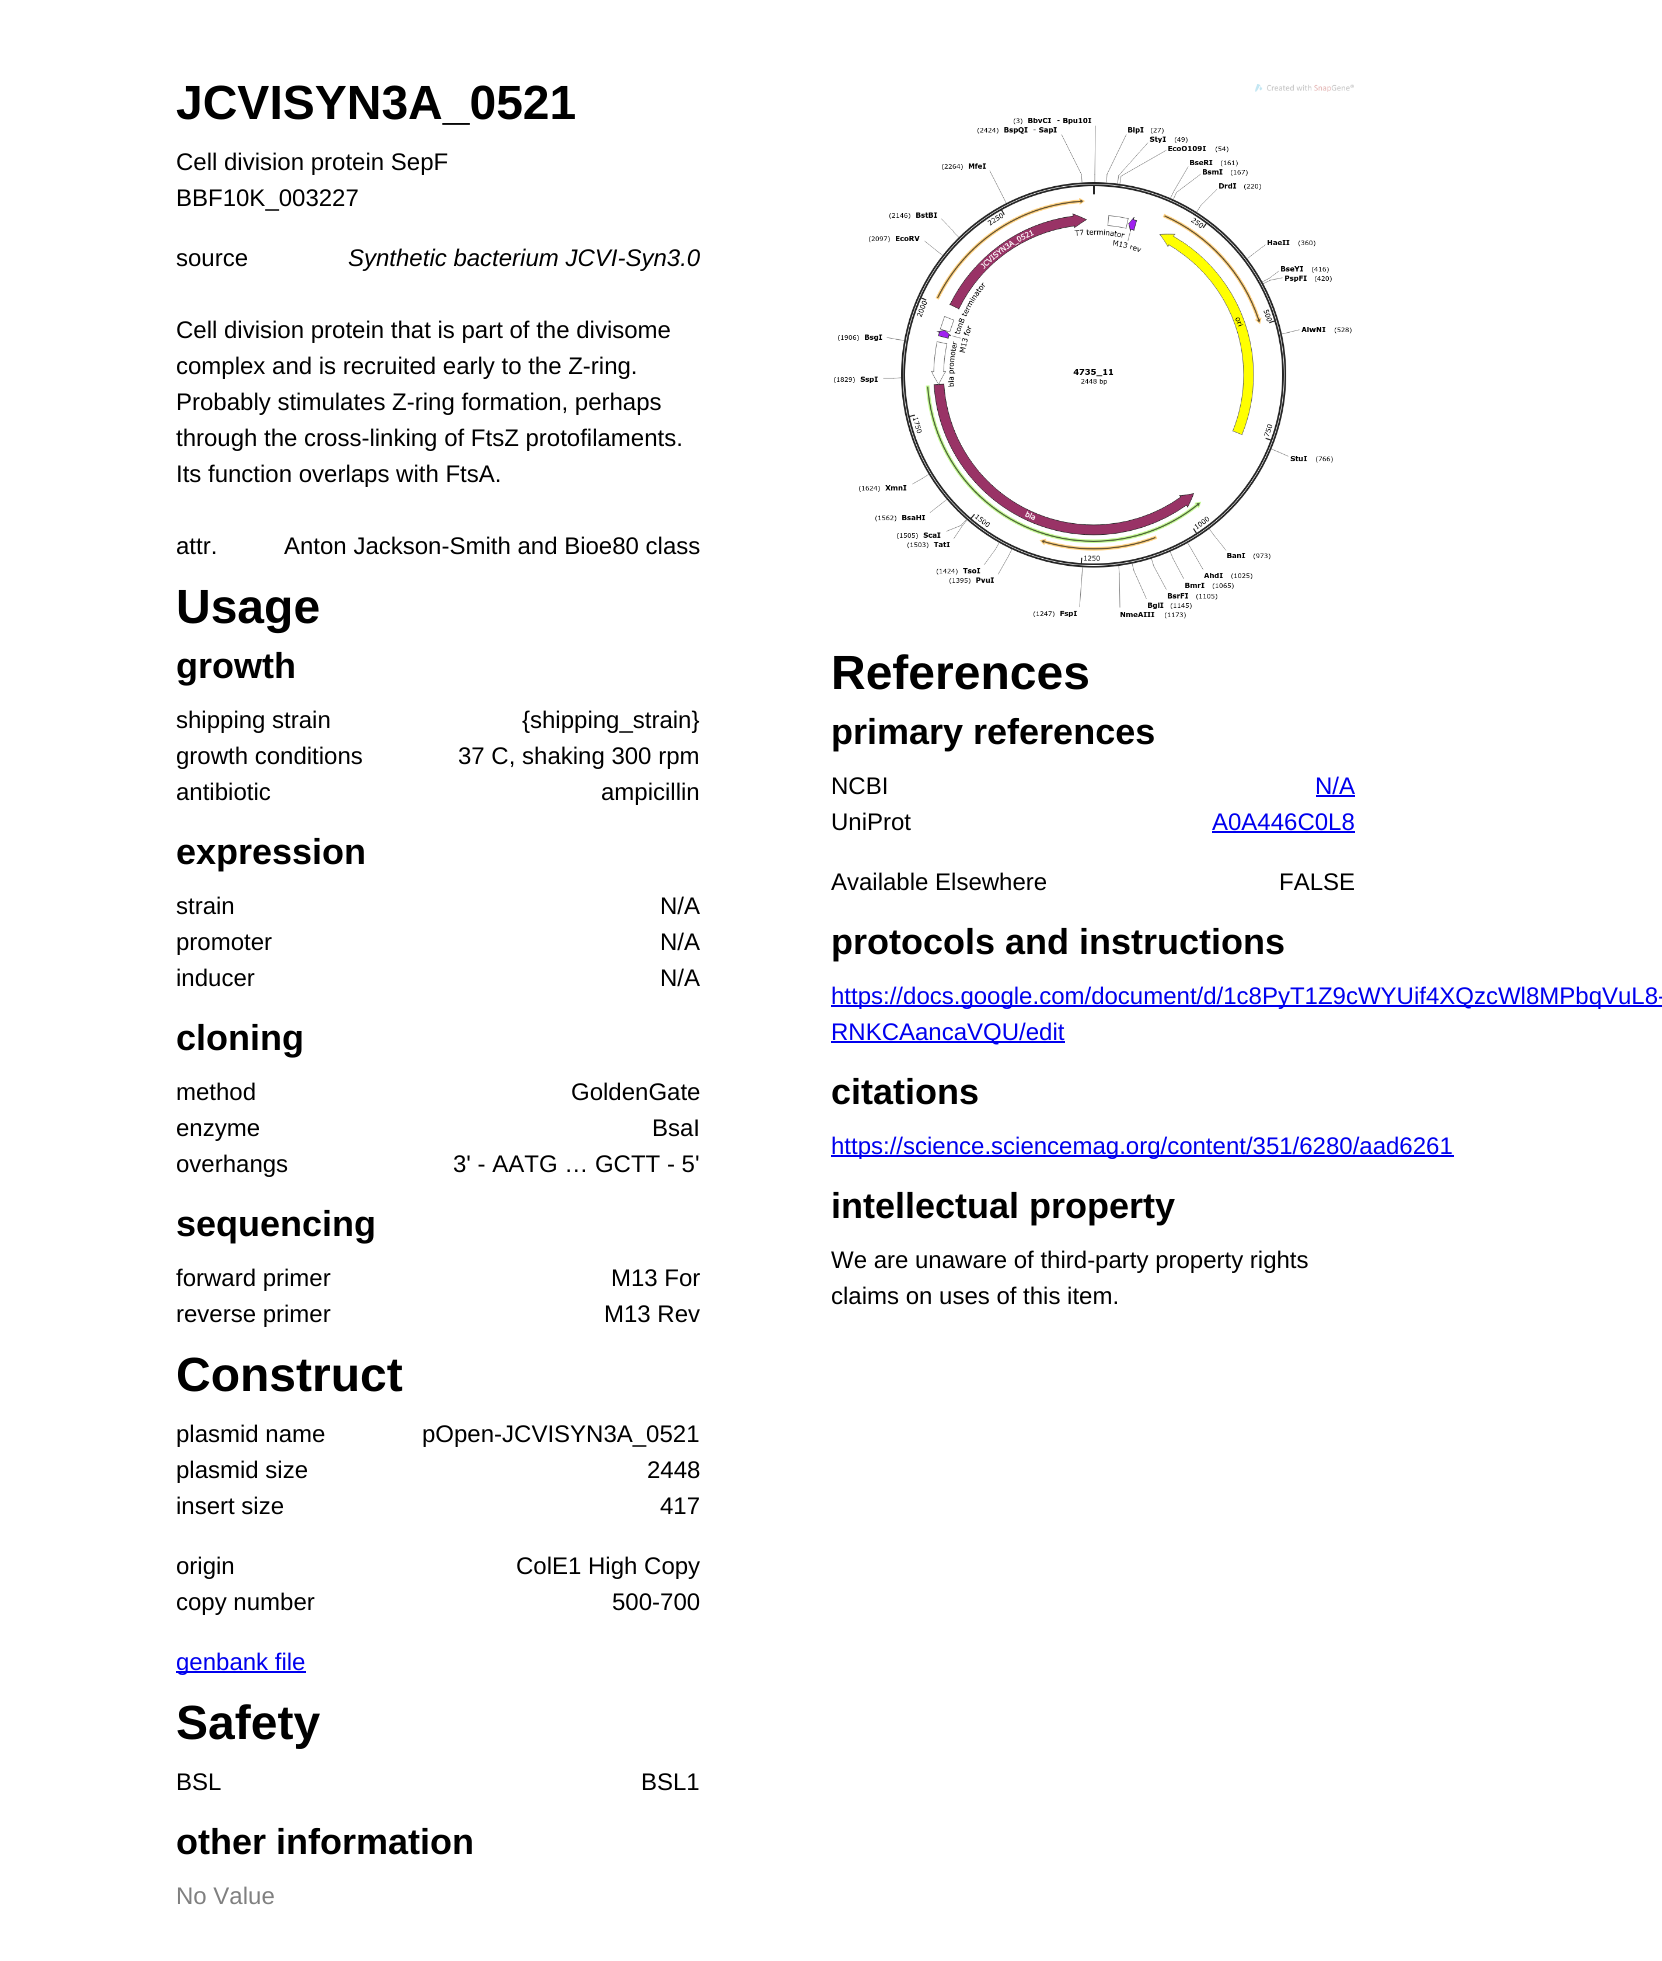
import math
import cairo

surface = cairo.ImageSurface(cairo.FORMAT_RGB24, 1662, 1961)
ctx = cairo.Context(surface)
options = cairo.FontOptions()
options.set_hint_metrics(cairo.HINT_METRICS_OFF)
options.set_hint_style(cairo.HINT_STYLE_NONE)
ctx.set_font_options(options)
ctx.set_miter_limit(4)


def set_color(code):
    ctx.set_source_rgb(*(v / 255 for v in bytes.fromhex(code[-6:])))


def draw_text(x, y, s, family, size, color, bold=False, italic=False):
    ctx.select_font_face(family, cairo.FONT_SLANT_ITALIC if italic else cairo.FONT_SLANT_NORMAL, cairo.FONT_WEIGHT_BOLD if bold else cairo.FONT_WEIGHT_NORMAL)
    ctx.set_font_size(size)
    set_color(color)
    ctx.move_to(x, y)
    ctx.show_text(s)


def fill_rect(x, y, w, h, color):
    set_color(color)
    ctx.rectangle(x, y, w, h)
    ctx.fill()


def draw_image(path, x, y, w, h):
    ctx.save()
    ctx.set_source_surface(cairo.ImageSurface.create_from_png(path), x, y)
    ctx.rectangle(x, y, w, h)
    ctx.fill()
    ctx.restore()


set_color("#ffffff")
ctx.paint()
draw_text(176, 119, "JCVISYN3A_0521", "Liberation Sans", 48, "#000000", bold=True)
draw_text(176, 170, "Cell division protein SepF", "Liberation Sans", 24, "#000000")
draw_text(176, 206, "BBF10K_003227", "Liberation Sans", 24, "#000000")
draw_text(176, 266, "source", "Liberation Sans", 24, "#000000")
draw_text(348, 266, "Synthetic bacterium JCVI-Syn3.0", "Liberation Sans", 24, "#000000", italic=True)
draw_text(176, 338, "Cell division protein that is part of the divisome", "Liberation Sans", 24, "#000000")
draw_text(176, 374, "complex and is recruited early to the Z-ring.", "Liberation Sans", 24, "#000000")
draw_text(176, 410, "Probably stimulates Z-ring formation, perhaps", "Liberation Sans", 24, "#000000")
draw_text(176, 446, "through the cross-linking of FtsZ protofilaments.", "Liberation Sans", 24, "#000000")
draw_text(176, 482, "Its function overlaps with FtsA.", "Liberation Sans", 24, "#000000")
draw_text(176, 554, "attr.", "Liberation Sans", 24, "#000000")
draw_text(284, 554, "Anton Jackson-Smith and Bioe80 class", "Liberation Sans", 24, "#000000")
draw_text(176, 623, "Usage", "Liberation Sans", 48, "#000000", bold=True)
draw_text(176, 678, "growth", "Liberation Sans", 36, "#000000", bold=True)
draw_text(176, 728, "shipping strain", "Liberation Sans", 24, "#000000")
draw_text(522, 728, "{shipping_strain}", "Liberation Sans", 24, "#000000")
draw_text(176, 764, "growth conditions", "Liberation Sans", 24, "#000000")
draw_text(458, 764, "37 C, shaking 300 rpm", "Liberation Sans", 24, "#000000")
draw_text(176, 800, "antibiotic", "Liberation Sans", 24, "#000000")
draw_text(601, 800, "ampicillin", "Liberation Sans", 24, "#000000")
draw_text(176, 864, "expression", "Liberation Sans", 36, "#000000", bold=True)
draw_text(176, 914, "strain", "Liberation Sans", 24, "#000000")
draw_text(660, 914, "N/A", "Liberation Sans", 24, "#000000")
draw_text(176, 950, "promoter", "Liberation Sans", 24, "#000000")
draw_text(660, 950, "N/A", "Liberation Sans", 24, "#000000")
draw_text(176, 986, "inducer", "Liberation Sans", 24, "#000000")
draw_text(660, 986, "N/A", "Liberation Sans", 24, "#000000")
draw_text(176, 1050, "cloning", "Liberation Sans", 36, "#000000", bold=True)
draw_text(176, 1100, "method", "Liberation Sans", 24, "#000000")
draw_text(571, 1100, "GoldenGate", "Liberation Sans", 24, "#000000")
draw_text(176, 1136, "enzyme", "Liberation Sans", 24, "#000000")
draw_text(652, 1136, "BsaI", "Liberation Sans", 24, "#000000")
draw_text(176, 1172, "overhangs", "Liberation Sans", 24, "#000000")
draw_text(453, 1172, "3' - AATG … GCTT - 5'", "Liberation Sans", 24, "#000000")
draw_text(176, 1236, "sequencing", "Liberation Sans", 36, "#000000", bold=True)
draw_text(176, 1286, "forward primer", "Liberation Sans", 24, "#000000")
draw_text(611, 1286, "M13 For", "Liberation Sans", 24, "#000000")
draw_text(176, 1322, "reverse primer", "Liberation Sans", 24, "#000000")
draw_text(604, 1322, "M13 Rev", "Liberation Sans", 24, "#000000")
draw_text(176, 1391, "Construct", "Liberation Sans", 48, "#000000", bold=True)
draw_text(176, 1442, "plasmid name", "Liberation Sans", 24, "#000000")
draw_text(422, 1442, "pOpen-JCVISYN3A_0521", "Liberation Sans", 24, "#000000")
draw_text(176, 1478, "plasmid size", "Liberation Sans", 24, "#000000")
draw_text(647, 1478, "2448", "Liberation Sans", 24, "#000000")
draw_text(176, 1514, "insert size", "Liberation Sans", 24, "#000000")
draw_text(660, 1514, "417", "Liberation Sans", 24, "#000000")
draw_text(176, 1574, "origin", "Liberation Sans", 24, "#000000")
draw_text(516, 1574, "ColE1 High Copy", "Liberation Sans", 24, "#000000")
draw_text(176, 1610, "copy number", "Liberation Sans", 24, "#000000")
draw_text(612, 1610, "500-700", "Liberation Sans", 24, "#000000")
fill_rect(176, 1671, 130, 2, "#0000ee")
draw_text(176, 1670, "genbank file", "Liberation Sans", 24, "#0000ee")
draw_text(176, 1739, "Safety", "Liberation Sans", 48, "#000000", bold=True)
draw_text(176, 1790, "BSL", "Liberation Sans", 24, "#000000")
draw_text(641, 1790, "BSL1", "Liberation Sans", 24, "#000000")
draw_text(176, 1854, "other information", "Liberation Sans", 36, "#000000", bold=True)
draw_text(176, 1904, "No Value", "Liberation Sans", 24, "#808080")
draw_image("assets/img1.png", 834, 84, 520, 535)
draw_text(831, 689, "References", "Liberation Sans", 48, "#000000", bold=True)
draw_text(831, 744, "primary references", "Liberation Sans", 36, "#000000", bold=True)
draw_text(831, 794, "NCBI", "Liberation Sans", 24, "#000000")
draw_text(1315, 794, "N/A", "Liberation Sans", 24, "#0000ee")
fill_rect(1316, 795, 39, 2, "#0000ee")
draw_text(831, 830, "UniProt", "Liberation Sans", 24, "#000000")
draw_text(1212, 830, "A0A446C0L8", "Liberation Sans", 24, "#0000ee")
fill_rect(1212, 831, 143, 2, "#0000ee")
draw_text(831, 890, "Available Elsewhere", "Liberation Sans", 24, "#000000")
draw_text(1279, 890, "FALSE", "Liberation Sans", 24, "#000000")
draw_text(831, 954, "protocols and instructions", "Liberation Sans", 36, "#000000", bold=True)
fill_rect(831, 1005, 831, 2, "#0000ee")
draw_text(831, 1004, "https://docs.google.com/document/d/1c8PyT1Z9cWYUif4XQzcWl8MPbqVuL8-", "Liberation Sans", 24, "#0000ee")
fill_rect(831, 1041, 234, 2, "#0000ee")
draw_text(831, 1040, "RNKCAancaVQU/edit", "Liberation Sans", 24, "#0000ee")
draw_text(831, 1104, "citations", "Liberation Sans", 36, "#000000", bold=True)
fill_rect(831, 1155, 623, 2, "#0000ee")
draw_text(831, 1154, "https://science.sciencemag.org/content/351/6280/aad6261", "Liberation Sans", 24, "#0000ee")
draw_text(831, 1218, "intellectual property", "Liberation Sans", 36, "#000000", bold=True)
draw_text(831, 1268, "We are unaware of third-party property rights", "Liberation Sans", 24, "#000000")
draw_text(831, 1304, "claims on uses of this item.", "Liberation Sans", 24, "#000000")
surface.write_to_png("output.png")
